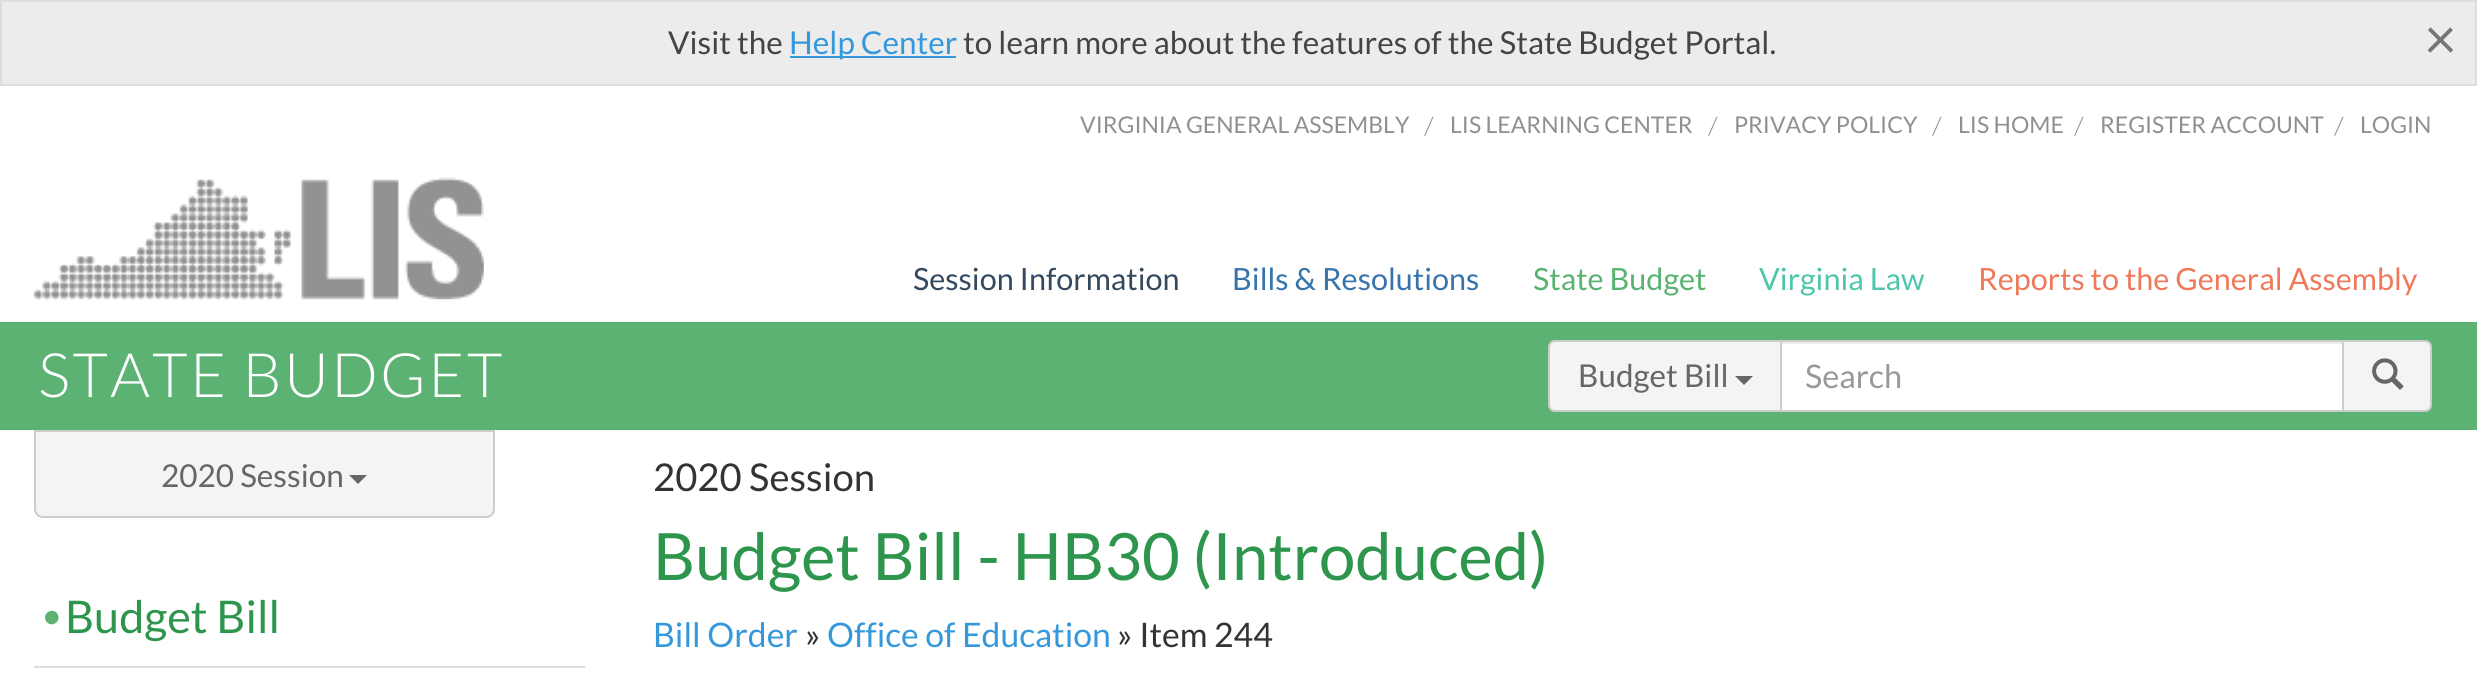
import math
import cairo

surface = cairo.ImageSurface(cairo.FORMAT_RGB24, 2477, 688)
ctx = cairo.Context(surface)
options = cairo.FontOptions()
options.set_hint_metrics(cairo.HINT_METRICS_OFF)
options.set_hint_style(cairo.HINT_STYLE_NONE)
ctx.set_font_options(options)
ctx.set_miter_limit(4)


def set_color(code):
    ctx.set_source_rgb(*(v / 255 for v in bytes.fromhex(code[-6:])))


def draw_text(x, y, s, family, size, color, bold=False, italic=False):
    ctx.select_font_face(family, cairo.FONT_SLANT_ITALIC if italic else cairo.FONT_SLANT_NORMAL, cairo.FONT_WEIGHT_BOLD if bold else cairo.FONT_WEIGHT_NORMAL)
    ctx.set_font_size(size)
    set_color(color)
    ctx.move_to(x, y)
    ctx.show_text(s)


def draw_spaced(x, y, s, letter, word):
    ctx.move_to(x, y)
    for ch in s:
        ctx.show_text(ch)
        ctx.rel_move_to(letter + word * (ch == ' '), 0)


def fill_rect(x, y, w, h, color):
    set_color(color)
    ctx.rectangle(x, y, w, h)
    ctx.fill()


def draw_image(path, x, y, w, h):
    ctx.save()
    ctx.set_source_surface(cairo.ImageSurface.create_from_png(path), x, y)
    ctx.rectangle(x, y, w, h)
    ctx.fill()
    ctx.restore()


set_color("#ffffff")
ctx.paint()
set_color("#ececec")
ctx.rectangle(1, 1, 2475, 84)
ctx.fill_preserve()
set_color("#d9e0da")
ctx.stroke()
draw_text(668, 54, "Visit the", "Lato", 31.5, "#444444")
fill_rect(790, 56, 166, 2, "#3498db")
draw_text(789, 54, "Help Center", "Lato", 31.5, "#3498db")
draw_text(963, 54, "to learn more about the features of the State Budget Portal.", "Lato", 31.5, "#444444")
draw_text(2424, 59, "×", "Lato", 57, "#767676")
draw_text(1080, 133, "VIRGINIA GENERAL ASSEMBLY", "Lato", 23, "#8f9090")
draw_text(1425, 133, "/", "PT Serif", 23, "#8f9090")
draw_text(1450, 133, "LIS LEARNING CENTER", "Lato", 23, "#8f9090")
draw_text(1709, 133, "/", "PT Serif", 23, "#8f9090")
draw_text(1734, 133, "PRIVACY POLICY", "Lato", 23, "#8f9090")
draw_text(1933, 133, "/", "PT Serif", 23, "#8f9090")
draw_text(1958, 133, "LIS HOME", "Lato", 23, "#8f9090")
draw_text(2075, 133, "/", "PT Serif", 23, "#8f9090")
draw_text(2100, 133, "REGISTER ACCOUNT", "Lato", 23, "#8f9090")
draw_text(2335, 133, "/", "PT Serif", 23, "#8f9090")
draw_text(2360, 133, "LOGIN", "Lato", 23, "#8f9090")
draw_image("assets/img1.png", 33, 177, 451, 123)
draw_text(913, 290, "Session Information", "Lato", 30.6, "#34495e")
draw_text(1232, 290, "Bills & Resolutions", "Lato", 30.6, "#3774ac")
draw_text(1533, 290, "State Budget", "Lato", 30.6, "#57b36f")
draw_text(1759, 290, "Virginia Law", "Lato", 30.6, "#4fc6ac")
draw_text(1978, 290, "Reports to the General Assembly", "Lato", 30.6, "#ef795a")
fill_rect(0, 322, 2477, 108, "#5bb272")
ctx.select_font_face("Lato Light")
ctx.set_font_size(61.25)
set_color("#ffffff")
draw_spaced(38, 397, "STATE BUDGET", 2.25, 0)
fill_rect(1782, 344, 560, 66, "#ffffff")
fill_rect(1782, 342, 560, 2, "#ececec")
ctx.rectangle(1781, 341, 563, 70)
set_color("#cccccc")
ctx.stroke()
set_color("#f3f5f5")
ctx.new_path()
ctx.move_to(1555, 341)
ctx.line_to(1781, 341)
ctx.line_to(1781, 411)
ctx.line_to(1555, 411)
ctx.curve_to(1551.5, 411, 1549, 408.5, 1549, 405)
ctx.line_to(1549, 347)
ctx.curve_to(1549, 343.5, 1551.5, 341, 1555, 341)
ctx.close_path()
ctx.fill_preserve()
set_color("#cccccc")
ctx.stroke()
draw_text(1578, 387, "Budget Bill", "Lato", 31.5, "#666666")
ctx.new_path()
ctx.move_to(1735, 376)
ctx.line_to(1753, 376)
ctx.line_to(1744, 385)
ctx.close_path()
ctx.fill()
draw_text(1805, 388, "Search", "Lato", 32.5, "#999999")
set_color("#f3f5f5")
ctx.new_path()
ctx.move_to(2343, 341)
ctx.line_to(2425, 341)
ctx.curve_to(2428.5, 341, 2431, 343.5, 2431, 347)
ctx.line_to(2431, 405)
ctx.curve_to(2431, 408.5, 2428.5, 411, 2425, 411)
ctx.line_to(2343, 411)
ctx.close_path()
ctx.fill_preserve()
set_color("#cccccc")
ctx.stroke()
draw_image("assets/img2.png", 2372, 358, 32, 32)
set_color("#f3f5f5")
ctx.new_path()
ctx.move_to(35, 431)
ctx.line_to(494, 431)
ctx.line_to(494, 509)
ctx.curve_to(494, 513.5, 490.5, 517, 486, 517)
ctx.line_to(43, 517)
ctx.curve_to(38.5, 517, 35, 513.5, 35, 509)
ctx.close_path()
ctx.fill_preserve()
set_color("#cccccc")
ctx.stroke()
draw_text(161, 487, "2020 Session", "Lato", 31.5, "#666666")
ctx.new_path()
ctx.move_to(349, 475)
ctx.line_to(367, 475)
ctx.line_to(358, 484)
ctx.close_path()
ctx.fill()
set_color("#5bb272")
ctx.new_path()
ctx.move_to(46, 621)
ctx.curve_to(41.5, 613.5, 53, 606.5, 57.5, 614)
ctx.curve_to(62, 622, 50.5, 628.5, 46, 621)
ctx.close_path()
ctx.fill()
draw_text(65, 633, "Budget Bill", "Lato", 45, "#2e954c")
fill_rect(34, 666, 551, 2, "#dddddd")
draw_text(653, 491, "2020 Session", "Lato", 38.25, "#333333")
draw_text(653, 580, "Budget Bill - HB30 (Introduced)", "Lato", 65.25, "#2e954c")
draw_text(653, 647, "Bill Order", "Lato", 33.75, "#3498db")
draw_text(805, 647, "»", "Lato", 33.75, "#333333")
draw_text(827, 647, "Office of Education", "Lato", 33.75, "#3498db")
draw_text(1117, 647, "» Item 244", "Lato", 33.75, "#333333")
surface.write_to_png("output.png")
